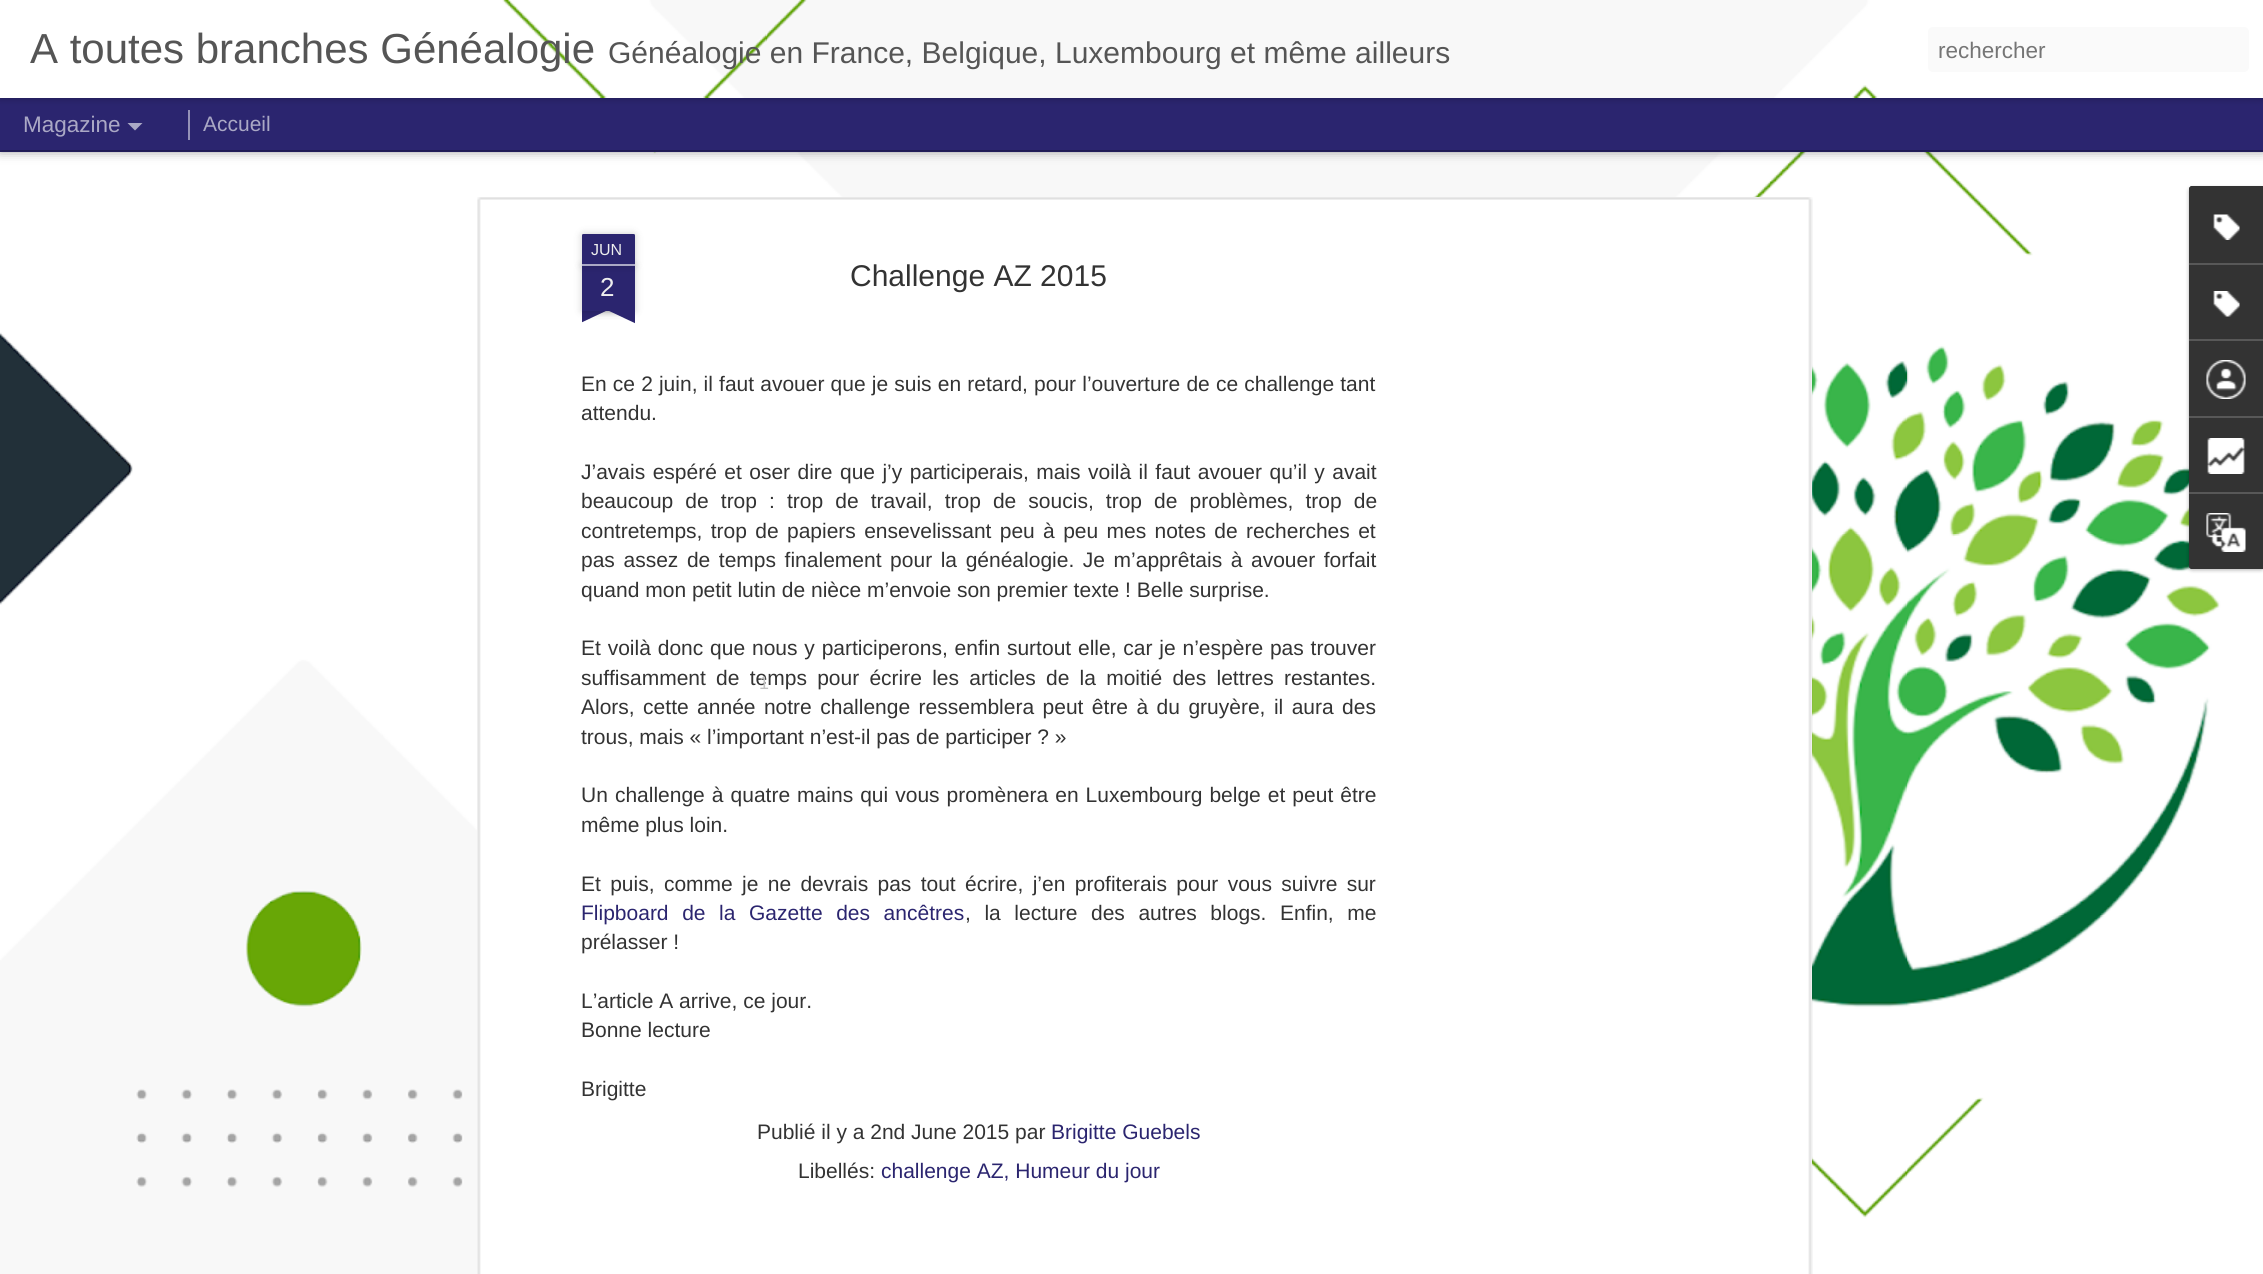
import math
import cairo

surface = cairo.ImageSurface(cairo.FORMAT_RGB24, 2263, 1274)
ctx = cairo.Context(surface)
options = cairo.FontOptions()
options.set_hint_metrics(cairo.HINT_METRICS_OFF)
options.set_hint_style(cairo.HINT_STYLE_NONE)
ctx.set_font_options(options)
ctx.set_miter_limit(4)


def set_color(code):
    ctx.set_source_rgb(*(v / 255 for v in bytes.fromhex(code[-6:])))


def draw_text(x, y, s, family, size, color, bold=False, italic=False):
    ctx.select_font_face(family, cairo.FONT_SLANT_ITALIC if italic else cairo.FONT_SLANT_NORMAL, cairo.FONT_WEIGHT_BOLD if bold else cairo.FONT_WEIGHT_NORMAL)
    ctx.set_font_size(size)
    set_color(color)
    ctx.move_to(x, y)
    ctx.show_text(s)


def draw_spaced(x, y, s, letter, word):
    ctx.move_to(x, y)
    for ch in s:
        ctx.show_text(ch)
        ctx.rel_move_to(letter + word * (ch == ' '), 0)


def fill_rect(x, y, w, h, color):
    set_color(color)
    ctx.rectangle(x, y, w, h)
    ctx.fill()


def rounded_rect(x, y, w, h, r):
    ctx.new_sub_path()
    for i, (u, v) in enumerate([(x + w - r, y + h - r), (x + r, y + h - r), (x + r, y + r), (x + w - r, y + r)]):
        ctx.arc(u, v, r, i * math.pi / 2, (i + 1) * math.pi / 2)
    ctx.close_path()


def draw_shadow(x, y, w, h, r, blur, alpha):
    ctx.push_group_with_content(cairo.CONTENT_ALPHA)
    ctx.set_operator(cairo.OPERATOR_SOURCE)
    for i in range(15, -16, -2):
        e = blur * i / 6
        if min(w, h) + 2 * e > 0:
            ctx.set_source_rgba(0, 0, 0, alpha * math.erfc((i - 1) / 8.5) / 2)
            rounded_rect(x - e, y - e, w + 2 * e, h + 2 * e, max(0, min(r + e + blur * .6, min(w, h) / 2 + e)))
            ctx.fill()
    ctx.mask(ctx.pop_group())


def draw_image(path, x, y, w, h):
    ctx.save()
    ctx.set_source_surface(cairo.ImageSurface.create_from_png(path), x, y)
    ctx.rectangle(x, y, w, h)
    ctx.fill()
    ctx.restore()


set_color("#2b256f")
ctx.paint()
draw_image("assets/img2.png", 0, 152, 2263, 1122)
set_color("#000000")
draw_shadow(0, 98, 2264, 52, 0, 6, 0.5)
fill_rect(0, 98, 2263, 52, "#2b256f")
fill_rect(188, 110, 2, 30, "#9592b7")
set_color("#000000")
draw_shadow(0, 0, 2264, 98, 0, 4, 0.3)
draw_image("assets/img1.png", 0, 0, 2263, 98)
draw_text(30, 63, "A toutes branches Généalogie", "Liberation Sans", 42, "#555555")
draw_text(608, 63, "Généalogie en France, Belgique, Luxembourg et même ailleurs", "Liberation Sans", 30, "#555555")
set_color("#fafafa")
rounded_rect(1928, 27, 321, 45, 5)
ctx.fill()
draw_text(1938, 58, "rechercher", "Liberation Sans", 22.5, "#757575")
draw_text(23, 132, "Magazine", "Liberation Sans", 22.5, "#aaa8c5")
ctx.new_path()
ctx.move_to(127.5, 123)
ctx.line_to(142.5, 123)
ctx.line_to(135, 130.5)
ctx.close_path()
ctx.fill()
draw_text(203, 131, "Accueil", "Liberation Sans", 21, "#aaa8c5")
fill_rect(477, 197, 1335, 1077, "#ffffff")
draw_image("assets/img3.png", 477, 197, 1336, 1077)
set_color("#000000")
draw_shadow(582, 266, 53, 45, 0, 4, 0.2)
fill_rect(582, 266, 53, 45, "#2b256f")
set_color("#000000")
draw_shadow(582, 234, 53, 32, 1.5, 4, 0.2)
set_color("#2b256f")
ctx.new_path()
ctx.move_to(583.5, 234)
ctx.line_to(633.5, 234)
ctx.curve_to(634.5, 234, 635, 234.5, 635, 235.5)
ctx.line_to(635, 266)
ctx.line_to(582, 266)
ctx.line_to(582, 235.5)
ctx.curve_to(582, 234.5, 582.5, 234, 583.5, 234)
ctx.close_path()
ctx.fill()
fill_rect(582, 264, 53, 2, "#aaa8c5")
draw_text(591, 255, "JUN", "Liberation Sans", 16, "#eeeeee")
draw_text(600, 296, "2", "Liberation Sans", 26, "#eeeeee")
ctx.save()
ctx.rectangle(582, 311, 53, 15)
ctx.clip()
set_color("#000000")
draw_shadow(569, 296, 75, 15, 0, 4, 0.2)
ctx.restore()
ctx.save()
ctx.rectangle(582, 311, 53, 15)
ctx.clip()
set_color("#2b256f")
ctx.new_path()
ctx.move_to(568, 312)
ctx.line_to(636, 280)
ctx.line_to(642, 294)
ctx.line_to(574, 326)
ctx.close_path()
ctx.fill()
ctx.restore()
ctx.save()
ctx.rectangle(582, 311, 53, 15)
ctx.clip()
set_color("#000000")
draw_shadow(573, 296, 75, 15, 0, 4, 0.2)
ctx.restore()
ctx.save()
ctx.rectangle(582, 311, 53, 15)
ctx.clip()
set_color("#2b256f")
ctx.new_path()
ctx.move_to(579, 280)
ctx.line_to(647, 312)
ctx.line_to(641, 326)
ctx.line_to(573, 294)
ctx.close_path()
ctx.fill()
ctx.restore()
draw_text(850, 286, "Challenge AZ 2015", "Liberation Sans", 30, "#333333")
ctx.set_font_size(21)
draw_spaced(581, 391, "En ce 2 juin, il faut avouer que je suis en retard, pour l’ouverture de ce challenge tant", 0, 0.3)
draw_text(581, 420, "attendu.", "Liberation Sans", 21, "#333333")
draw_spaced(581, 479, "J’avais espéré et oser dire que j’y participerais, mais voilà il faut avouer qu’il y avait", 0, 1.6)
draw_spaced(581, 508, "beaucoup de trop : trop de travail, trop de soucis, trop de problèmes, trop de", 0, 6.25)
draw_spaced(581, 538, "contretemps, trop de papiers ensevelissant peu à peu mes notes de recherches et", 0, 2.5)
draw_spaced(581, 567, "pas assez de temps finalement pour la généalogie. Je m’apprêtais à avouer forfait", 0, 2.75)
draw_text(581, 597, "quand mon petit lutin de nièce m’envoie son premier texte ! Belle surprise.", "Liberation Sans", 21, "#333333")
draw_spaced(581, 655, "Et voilà donc que nous y participerons, enfin surtout elle, car je n’espère pas trouver", 0, 1)
draw_spaced(581, 685, "suffisamment de temps pour écrire les articles de la moitié des lettres restantes.", 0, 4.4)
draw_spaced(581, 714, "Alors, cette année notre challenge ressemblera peut être à du gruyère, il aura des", 0, 2.6)
draw_text(581, 744, "trous, mais « l’important n’est-il pas de participer ? »", "Liberation Sans", 21, "#333333")
draw_spaced(581, 802, "Un challenge à quatre mains qui vous promènera en Luxembourg belge et peut être", 0, 1.2)
draw_text(581, 832, "même plus loin.", "Liberation Sans", 21, "#333333")
draw_spaced(581, 891, "Et puis, comme je ne devrais pas tout écrire, j’en profiterais pour vous suivre sur", 0, 3.5)
set_color("#2b256f")
draw_spaced(581, 920, "Flipboard de la Gazette des ancêtres", 0, 7.75)
set_color("#333333")
draw_spaced(965, 920, ", la lecture des autres blogs. Enfin, me", 0, 7.75)
draw_text(581, 949, "prélasser !", "Liberation Sans", 21, "#333333")
draw_text(581, 1008, "L’article A arrive, ce jour.", "Liberation Sans", 21, "#333333")
draw_text(581, 1037, "Bonne lecture", "Liberation Sans", 21, "#333333")
draw_text(581, 1096, "Brigitte", "Liberation Sans", 21, "#333333")
draw_text(757, 1139, "Publié il y a 2nd June 2015 par", "Liberation Sans", 21, "#333333")
draw_text(1051, 1139, "Brigitte Guebels", "Liberation Sans", 21, "#2b256f")
draw_text(798, 1178, "Libellés:", "Liberation Sans", 21, "#333333")
draw_text(881, 1178, "challenge AZ, Humeur du jour", "Liberation Sans", 21, "#2b256f")
set_color("#000000")
draw_shadow(2189, 188, 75, 382, 3, 2, 0.3)
set_color("#333333")
ctx.new_path()
ctx.move_to(2192, 186)
ctx.line_to(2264, 186)
ctx.line_to(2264, 569)
ctx.line_to(2192, 569)
ctx.curve_to(2190.5, 569, 2189, 567.5, 2189, 566)
ctx.line_to(2189, 189)
ctx.curve_to(2189, 187.5, 2190.5, 186, 2192, 186)
ctx.close_path()
ctx.fill()
ctx.new_path()
ctx.move_to(2192, 186)
ctx.line_to(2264, 186)
ctx.line_to(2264, 263)
ctx.line_to(2189, 263)
ctx.line_to(2189, 189)
ctx.curve_to(2189, 187.5, 2190.5, 186, 2192, 186)
ctx.close_path()
ctx.fill()
draw_image("assets/img4.png", 2213, 214, 27, 26)
fill_rect(2189, 263, 74, 2, "#585858")
draw_image("assets/img5.png", 2213, 291, 27, 26)
fill_rect(2189, 339, 74, 2, "#585858")
draw_image("assets/img6.png", 2206, 360, 40, 39)
fill_rect(2189, 416, 74, 2, "#585858")
draw_image("assets/img7.png", 2207, 438, 38, 36)
set_color("#333333")
ctx.new_path()
ctx.move_to(2189, 492)
ctx.line_to(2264, 492)
ctx.line_to(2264, 569)
ctx.line_to(2192, 569)
ctx.curve_to(2190.5, 569, 2189, 567.5, 2189, 566)
ctx.close_path()
ctx.fill()
fill_rect(2189, 492, 74, 2, "#585858")
draw_image("assets/img8.png", 2206, 513, 40, 39)
draw_text(759, 689, "1", "Liberation Sans", 18, "#c1c1c1")
surface.write_to_png("output.png")
